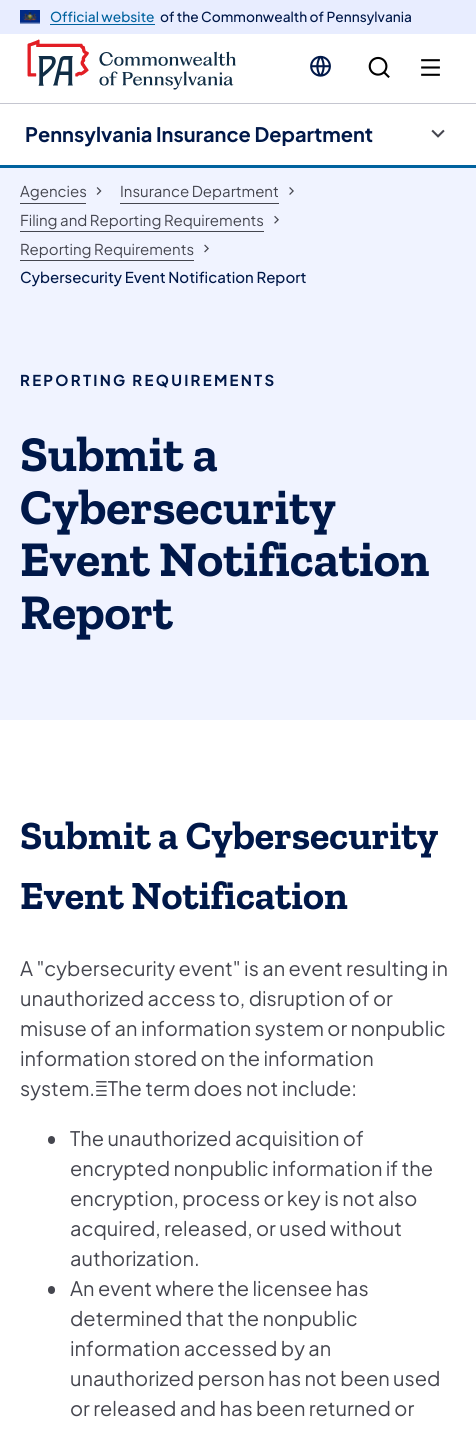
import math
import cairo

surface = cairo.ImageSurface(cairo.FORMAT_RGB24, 476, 1440)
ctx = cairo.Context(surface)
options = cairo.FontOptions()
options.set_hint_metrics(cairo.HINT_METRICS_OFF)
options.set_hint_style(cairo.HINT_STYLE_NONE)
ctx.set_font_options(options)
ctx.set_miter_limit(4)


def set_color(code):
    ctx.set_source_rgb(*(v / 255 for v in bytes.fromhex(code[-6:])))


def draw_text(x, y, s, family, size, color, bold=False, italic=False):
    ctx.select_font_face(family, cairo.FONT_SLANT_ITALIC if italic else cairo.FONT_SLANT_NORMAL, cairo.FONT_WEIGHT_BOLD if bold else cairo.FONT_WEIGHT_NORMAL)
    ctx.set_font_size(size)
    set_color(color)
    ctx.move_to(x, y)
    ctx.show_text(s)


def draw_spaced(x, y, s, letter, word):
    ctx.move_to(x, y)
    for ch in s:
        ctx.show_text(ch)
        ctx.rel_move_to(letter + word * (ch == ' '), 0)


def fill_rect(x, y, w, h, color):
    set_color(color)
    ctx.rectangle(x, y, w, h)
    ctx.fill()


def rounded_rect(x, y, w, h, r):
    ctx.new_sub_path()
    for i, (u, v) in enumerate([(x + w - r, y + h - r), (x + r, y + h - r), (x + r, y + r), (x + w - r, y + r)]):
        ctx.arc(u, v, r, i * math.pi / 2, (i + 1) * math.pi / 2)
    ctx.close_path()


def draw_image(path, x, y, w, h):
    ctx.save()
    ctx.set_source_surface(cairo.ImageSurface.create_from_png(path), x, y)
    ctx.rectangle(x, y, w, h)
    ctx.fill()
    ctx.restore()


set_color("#ffffff")
ctx.paint()
fill_rect(0, 0, 476, 34, "#e8edff")
draw_image("assets/img1.png", 20, 10, 20, 14)
draw_text(50, 22, "Official website", "Plus Jakarta Sans Medium", 13.75, "#00629e")
fill_rect(50, 24, 105, 1, "#00629e")
draw_text(160, 22, "of the Commonwealth of Pennsylvania", "Plus Jakarta Sans Medium", 13.75, "#001849")
fill_rect(0, 103, 476, 1, "#c5c6d0")
draw_image("assets/img2.png", 27, 39, 209, 51)
draw_image("assets/img3.png", 310, 55, 21, 22)
draw_image("assets/img4.png", 368, 56, 22, 22)
draw_image("assets/img5.png", 421, 59, 19, 17)
fill_rect(0, 165, 476, 3, "#00629e")
draw_text(25, 142, "Pennsylvania Insurance Department", "Plus Jakarta Sans", 20, "#001849", bold=True)
draw_image("assets/img6.png", 431, 129, 14, 9)
fill_rect(0, 168, 476, 552, "#f0f3ff")
draw_text(20, 197, "Agencies", "Plus Jakarta Sans", 15, "#45464f")
fill_rect(20, 203, 66, 1, "#45464f")
draw_image("assets/img7.png", 96, 187, 6, 8)
draw_text(120, 197, "Insurance Department", "Plus Jakarta Sans", 15, "#45464f")
fill_rect(120, 203, 159, 1, "#45464f")
draw_image("assets/img8.png", 289, 187, 5, 8)
draw_text(20, 226, "Filing and Reporting Requirements", "Plus Jakarta Sans", 15, "#45464f")
fill_rect(20, 231, 244, 1, "#45464f")
draw_image("assets/img9.png", 274, 215, 5, 9)
draw_text(20, 255, "Reporting Requirements", "Plus Jakarta Sans", 15, "#45464f")
fill_rect(20, 260, 174, 1, "#45464f")
draw_image("assets/img10.png", 204, 244, 5, 9)
draw_text(20, 283, "Cybersecurity Event Notification Report", "Plus Jakarta Sans Medium", 15, "#001849")
ctx.select_font_face("Plus Jakarta Sans", cairo.FONT_SLANT_NORMAL, cairo.FONT_WEIGHT_BOLD)
draw_spaced(20, 386, "REPORTING REQUIREMENTS", 2.25, 0)
draw_text(20, 471, "Submit a", "Zilla Slab", 50, "#001849", bold=True)
draw_text(20, 524, "Cybersecurity", "Zilla Slab", 50, "#001849", bold=True)
draw_text(20, 576, "Event Notification", "Zilla Slab", 50, "#001849", bold=True)
draw_text(20, 629, "Report", "Zilla Slab", 50, "#001849", bold=True)
draw_text(20, 849, "Submit a Cybersecurity", "Zilla Slab", 40, "#001849", bold=True)
draw_text(20, 909, "Event Notification", "Zilla Slab", 40, "#001849", bold=True)
draw_text(20, 976, "A \"cybersecurity event\" is an event resulting in", "Plus Jakarta Sans", 20, "#45464f")
draw_text(20, 1006, "unauthorized access to, disruption of or", "Plus Jakarta Sans", 20, "#45464f")
draw_text(20, 1036, "misuse of an information system or nonpublic", "Plus Jakarta Sans", 20, "#45464f")
draw_text(20, 1066, "information stored on the information", "Plus Jakarta Sans", 20, "#45464f")
draw_text(20, 1096, "system. The term does not include:", "Plus Jakarta Sans", 20, "#45464f")
rounded_rect(48, 1136, 7, 8, 3.5)
ctx.fill()
draw_text(70, 1146, "The unauthorized acquisition of", "Plus Jakarta Sans", 20, "#45464f")
draw_text(70, 1176, "encrypted nonpublic information if the", "Plus Jakarta Sans", 20, "#45464f")
draw_text(70, 1206, "encryption, process or key is not also", "Plus Jakarta Sans", 20, "#45464f")
draw_text(70, 1236, "acquired, released, or used without", "Plus Jakarta Sans", 20, "#45464f")
draw_text(70, 1266, "authorization.", "Plus Jakarta Sans", 20, "#45464f")
rounded_rect(48, 1286, 7, 8, 3.5)
ctx.fill()
draw_text(70, 1296, "An event where the licensee has", "Plus Jakarta Sans", 20, "#45464f")
draw_text(70, 1326, "determined that the nonpublic", "Plus Jakarta Sans", 20, "#45464f")
draw_text(70, 1356, "information accessed by an", "Plus Jakarta Sans", 20, "#45464f")
draw_text(70, 1386, "unauthorized person has not been used", "Plus Jakarta Sans", 20, "#45464f")
draw_text(70, 1416, "or released and has been returned or", "Plus Jakarta Sans", 20, "#45464f")
surface.write_to_png("output.png")
